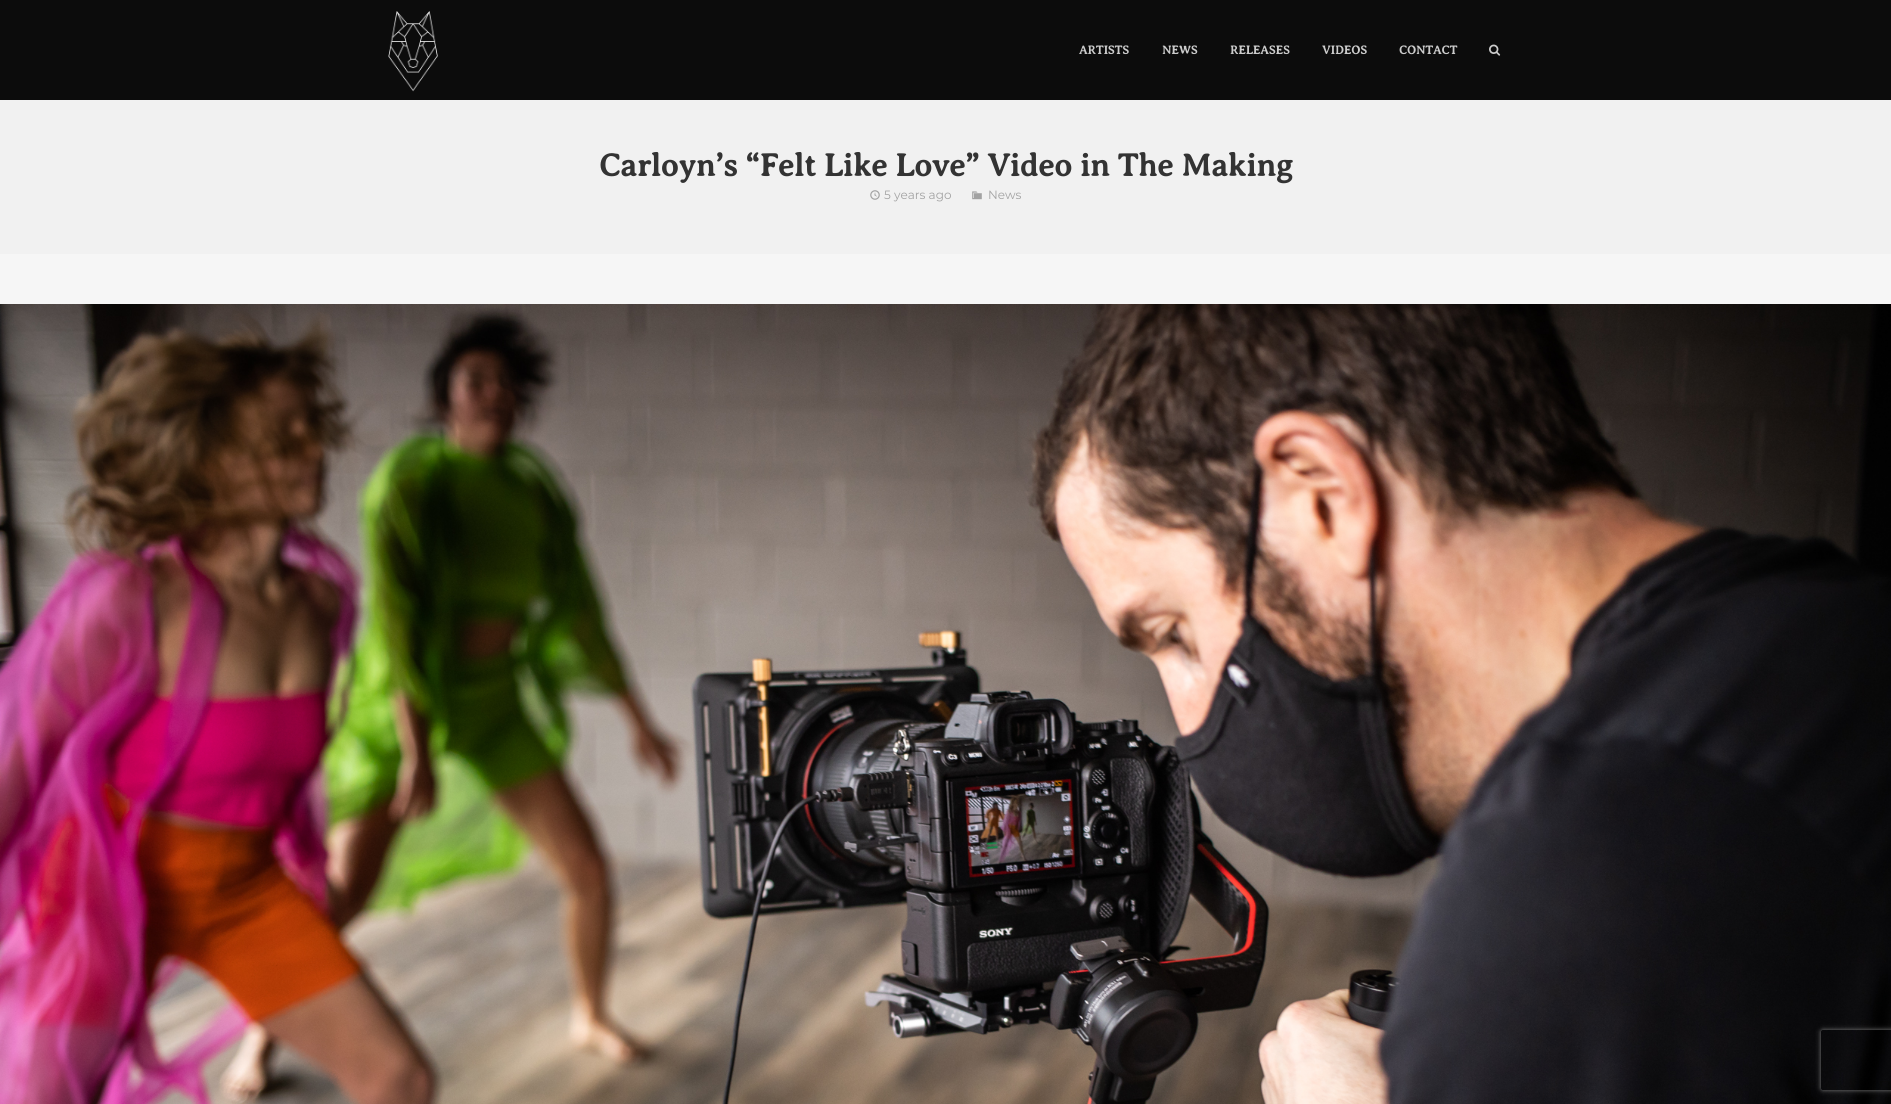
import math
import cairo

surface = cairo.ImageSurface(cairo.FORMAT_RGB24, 1891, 1104)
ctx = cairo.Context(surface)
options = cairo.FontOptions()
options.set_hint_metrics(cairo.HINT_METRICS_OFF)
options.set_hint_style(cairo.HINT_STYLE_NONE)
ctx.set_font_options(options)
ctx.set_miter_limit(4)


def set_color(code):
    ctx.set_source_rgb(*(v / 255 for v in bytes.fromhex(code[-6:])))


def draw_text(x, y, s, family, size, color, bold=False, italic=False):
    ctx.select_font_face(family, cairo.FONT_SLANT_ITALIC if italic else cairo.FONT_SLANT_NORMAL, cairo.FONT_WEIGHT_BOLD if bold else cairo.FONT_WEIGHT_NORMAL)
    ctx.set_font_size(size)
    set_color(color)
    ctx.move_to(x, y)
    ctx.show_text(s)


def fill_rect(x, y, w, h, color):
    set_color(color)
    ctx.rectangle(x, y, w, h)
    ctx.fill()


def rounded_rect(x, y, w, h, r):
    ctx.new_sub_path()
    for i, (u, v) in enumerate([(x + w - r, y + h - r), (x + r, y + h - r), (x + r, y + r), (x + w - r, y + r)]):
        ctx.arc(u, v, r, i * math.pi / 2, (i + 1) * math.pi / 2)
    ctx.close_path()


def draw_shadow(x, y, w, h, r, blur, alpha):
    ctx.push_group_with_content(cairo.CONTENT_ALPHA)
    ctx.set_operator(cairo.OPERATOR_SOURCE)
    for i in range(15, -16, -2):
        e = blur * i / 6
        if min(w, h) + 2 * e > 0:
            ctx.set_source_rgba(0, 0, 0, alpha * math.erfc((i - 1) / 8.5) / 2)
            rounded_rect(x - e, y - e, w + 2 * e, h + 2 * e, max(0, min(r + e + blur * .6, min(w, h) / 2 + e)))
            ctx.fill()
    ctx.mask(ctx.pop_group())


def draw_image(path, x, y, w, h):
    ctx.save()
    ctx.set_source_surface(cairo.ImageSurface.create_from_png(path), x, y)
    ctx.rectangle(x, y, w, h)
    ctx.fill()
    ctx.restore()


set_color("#f1f1f1")
ctx.paint()
fill_rect(0, 0, 1891, 100, "#0c0c0c")
draw_image("assets/img1.png", 388, 11, 50, 81)
draw_text(1079, 54, "ARTISTS", "Averia Serif Libre", 12, "#cccccc", bold=True)
draw_text(1162, 54, "NEWS", "Averia Serif Libre", 12, "#cccccc", bold=True)
draw_text(1230, 54, "RELEASES", "Averia Serif Libre", 12, "#cccccc", bold=True)
draw_text(1322, 54, "VIDEOS", "Averia Serif Libre", 12, "#cccccc", bold=True)
draw_text(1399, 54, "CONTACT", "Averia Serif Libre", 12, "#cccccc", bold=True)
draw_image("assets/img2.png", 1489, 44, 12, 12)
draw_text(599, 176, "Carloyn’s “Felt Like Love” Video in The Making", "Averia Serif Libre", 32, "#333333", bold=True)
draw_image("assets/img3.png", 870, 190, 10, 10)
draw_text(884, 199, "5 years ago", "Montserrat", 12, "#a2a2a2")
draw_image("assets/img4.png", 972, 191, 10, 9)
draw_text(988, 199, "News", "Montserrat", 12, "#a2a2a2")
fill_rect(0, 254, 1891, 50, "#f6f6f6")
draw_image("assets/img5.png", 0, 304, 1891, 800)
ctx.save()
ctx.set_fill_rule(cairo.FILL_RULE_EVEN_ODD)
ctx.new_path()
ctx.move_to(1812, 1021)
ctx.line_to(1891, 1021)
ctx.line_to(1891, 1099)
ctx.line_to(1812, 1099)
ctx.close_path()
ctx.move_to(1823, 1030)
ctx.line_to(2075, 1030)
ctx.curve_to(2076, 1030, 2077, 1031, 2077, 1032)
ctx.line_to(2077, 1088)
ctx.curve_to(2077, 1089, 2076, 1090, 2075, 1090)
ctx.line_to(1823, 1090)
ctx.curve_to(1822, 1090, 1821, 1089, 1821, 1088)
ctx.line_to(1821, 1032)
ctx.curve_to(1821, 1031, 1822, 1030, 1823, 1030)
ctx.close_path()
ctx.clip()
set_color("#808080")
draw_shadow(1821, 1030, 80, 60, 2, 2.5, 1)
ctx.restore()
surface.write_to_png("output.png")
